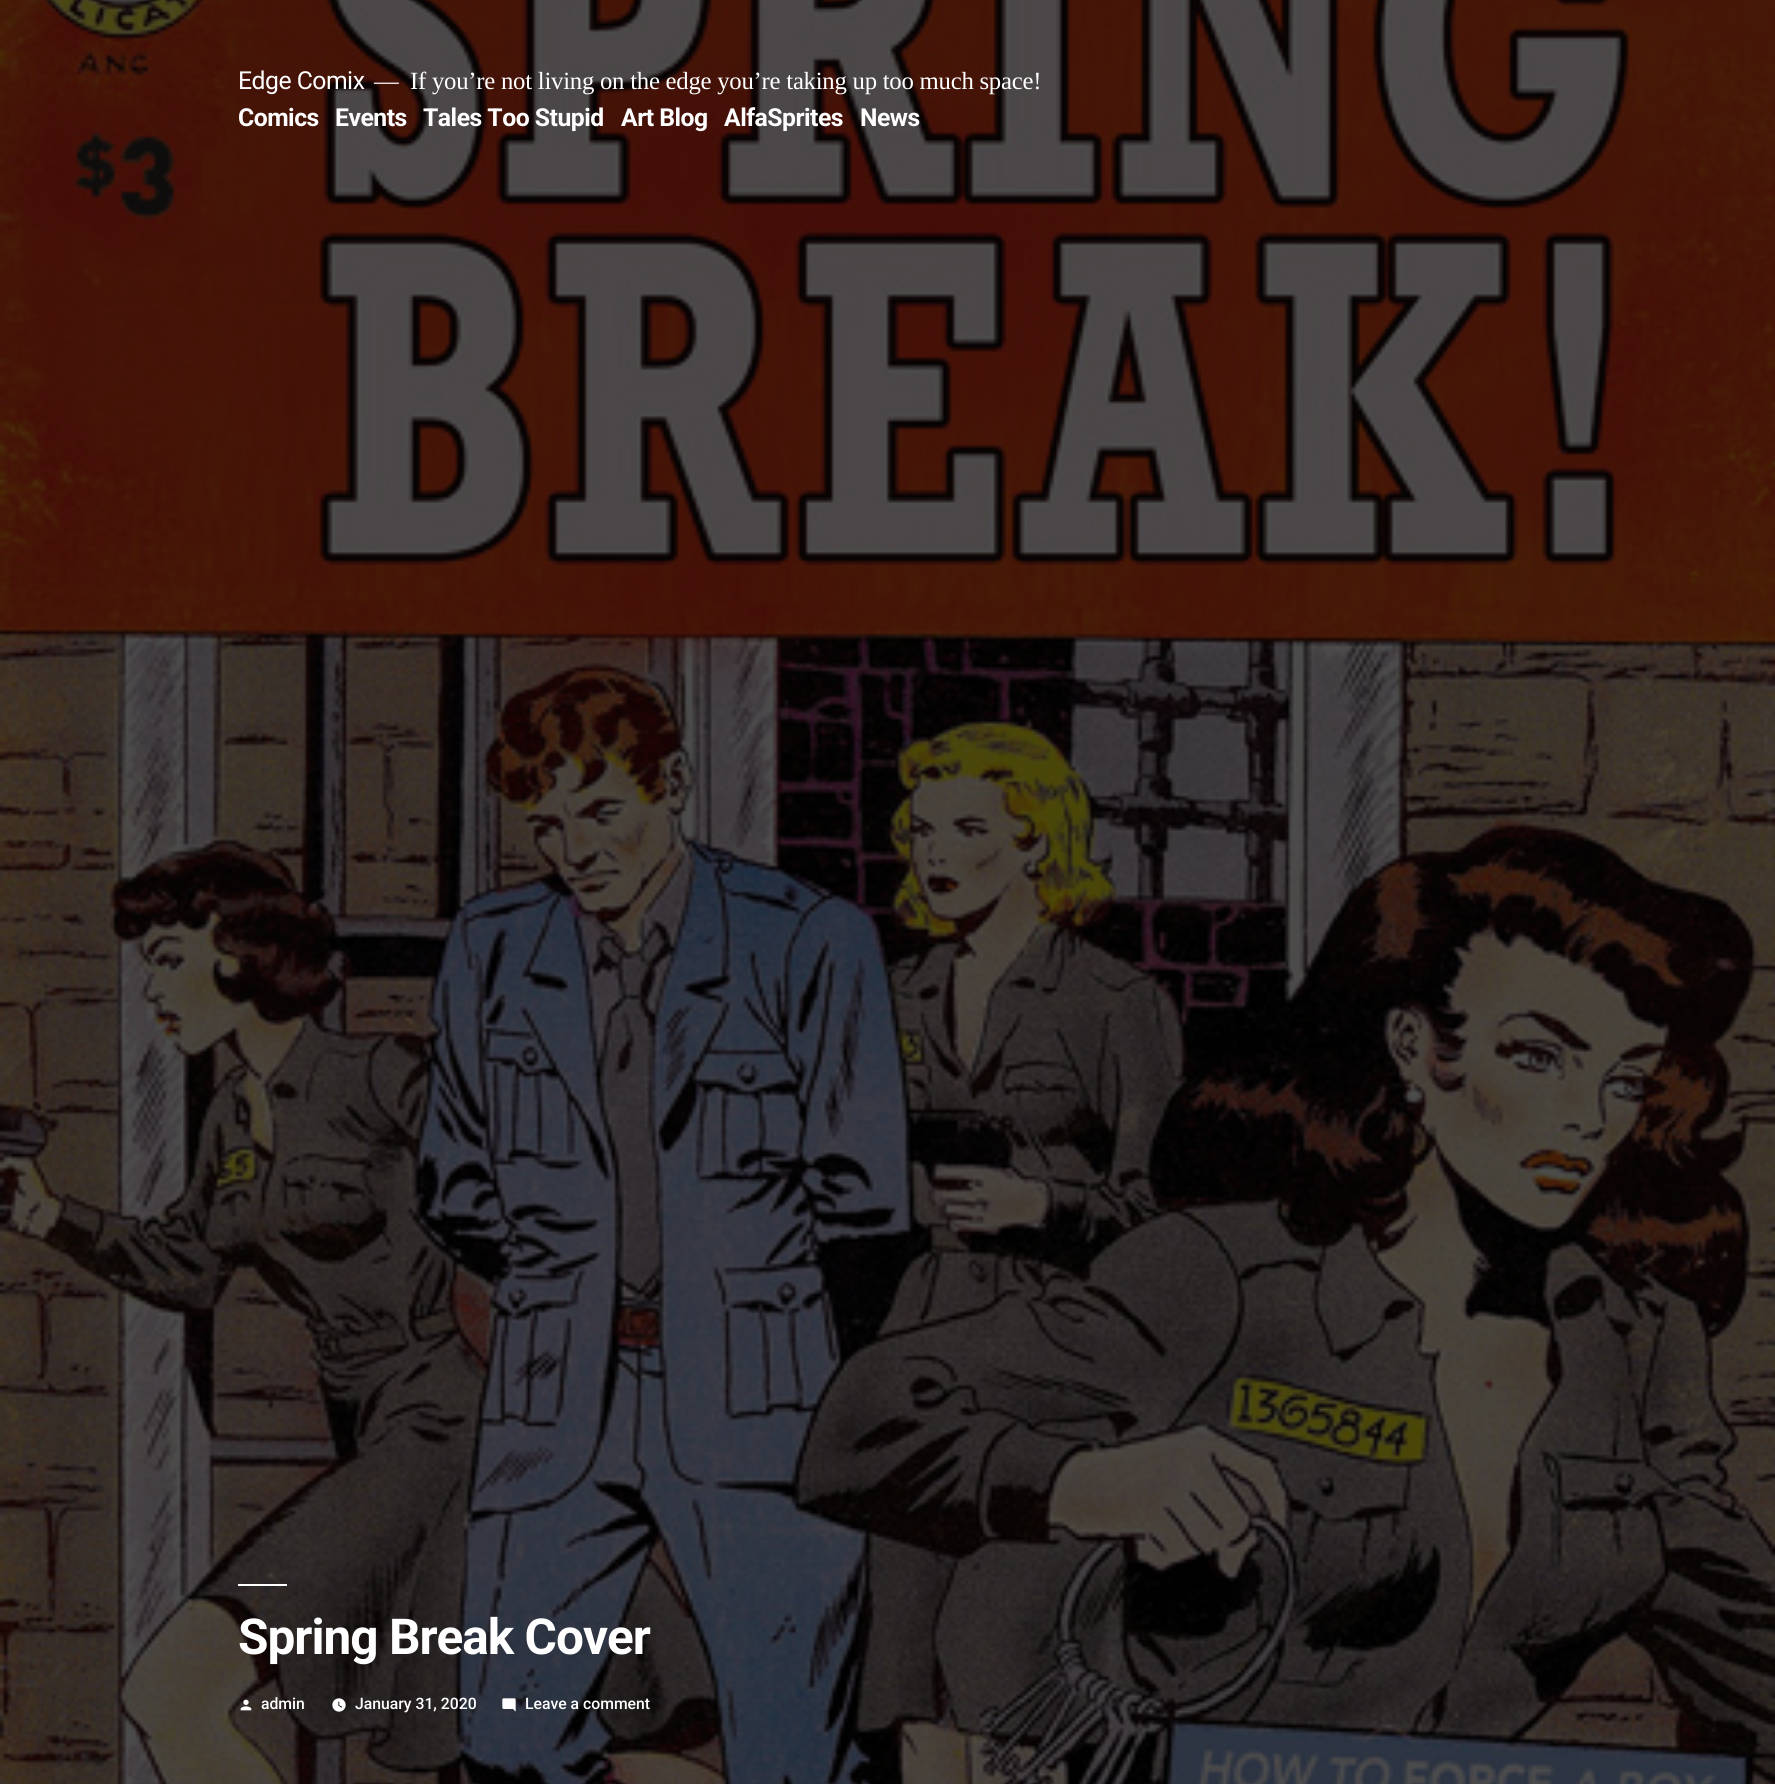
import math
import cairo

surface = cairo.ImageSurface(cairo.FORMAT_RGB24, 1775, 1784)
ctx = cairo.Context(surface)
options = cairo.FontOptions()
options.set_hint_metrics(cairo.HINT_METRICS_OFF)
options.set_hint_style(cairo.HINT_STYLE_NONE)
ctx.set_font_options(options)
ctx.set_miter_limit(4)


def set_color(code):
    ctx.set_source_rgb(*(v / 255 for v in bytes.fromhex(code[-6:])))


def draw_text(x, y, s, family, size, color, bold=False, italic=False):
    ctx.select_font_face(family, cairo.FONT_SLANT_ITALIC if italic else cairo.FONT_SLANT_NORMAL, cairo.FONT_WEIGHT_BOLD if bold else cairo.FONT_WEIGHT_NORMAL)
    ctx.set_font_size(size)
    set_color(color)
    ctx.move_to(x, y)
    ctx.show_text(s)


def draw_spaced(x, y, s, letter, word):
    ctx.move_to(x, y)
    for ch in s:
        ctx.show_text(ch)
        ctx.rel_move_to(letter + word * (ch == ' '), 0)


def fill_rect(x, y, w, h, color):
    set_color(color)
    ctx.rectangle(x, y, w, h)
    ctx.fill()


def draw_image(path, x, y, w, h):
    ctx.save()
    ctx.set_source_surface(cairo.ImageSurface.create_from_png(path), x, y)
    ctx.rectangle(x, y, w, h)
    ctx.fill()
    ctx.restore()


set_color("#ffffff")
ctx.paint()
draw_image("assets/img1.png", 0, 0, 1775, 1784)
ctx.select_font_face("Roboto")
ctx.set_font_size(24.75)
set_color("#ffffff")
draw_spaced(238, 89, "Edge Comix", -0.5, 0)
ctx.select_font_face("Liberation Serif")
draw_spaced(374, 89, "—", -0.25, 0)
draw_spaced(410, 89, "If you’re not living on the edge you’re taking up too much space!", -0.25, 0)
ctx.select_font_face("Roboto", cairo.FONT_SLANT_NORMAL, cairo.FONT_WEIGHT_BOLD)
draw_spaced(238, 126, "Comics", -0.5, 0)
draw_spaced(335, 126, "Events", -0.5, 0)
draw_spaced(423, 126, "Tales Too Stupid", -0.5, 0)
draw_spaced(621, 126, "Art Blog", -0.5, 0)
draw_spaced(724, 126, "AlfaSprites", -0.5, 0)
draw_spaced(860, 126, "News", -0.5, 0)
fill_rect(238, 1584, 49, 2, "#ffffff")
ctx.set_font_size(49.5)
draw_spaced(238, 1654, "Spring Break Cover", -1, 0)
draw_image("assets/img2.png", 240, 1699, 12, 12)
draw_text(261, 1709, "admin", "Roboto Medium", 15.75, "#ffffff")
draw_image("assets/img3.png", 332, 1698, 14, 14)
draw_text(355, 1709, "January 31, 2020", "Roboto Medium", 15.75, "#ffffff")
draw_image("assets/img4.png", 502, 1698, 14, 14)
draw_text(525, 1709, "Leave a comment", "Roboto Medium", 15.75, "#ffffff")
surface.write_to_png("output.png")
